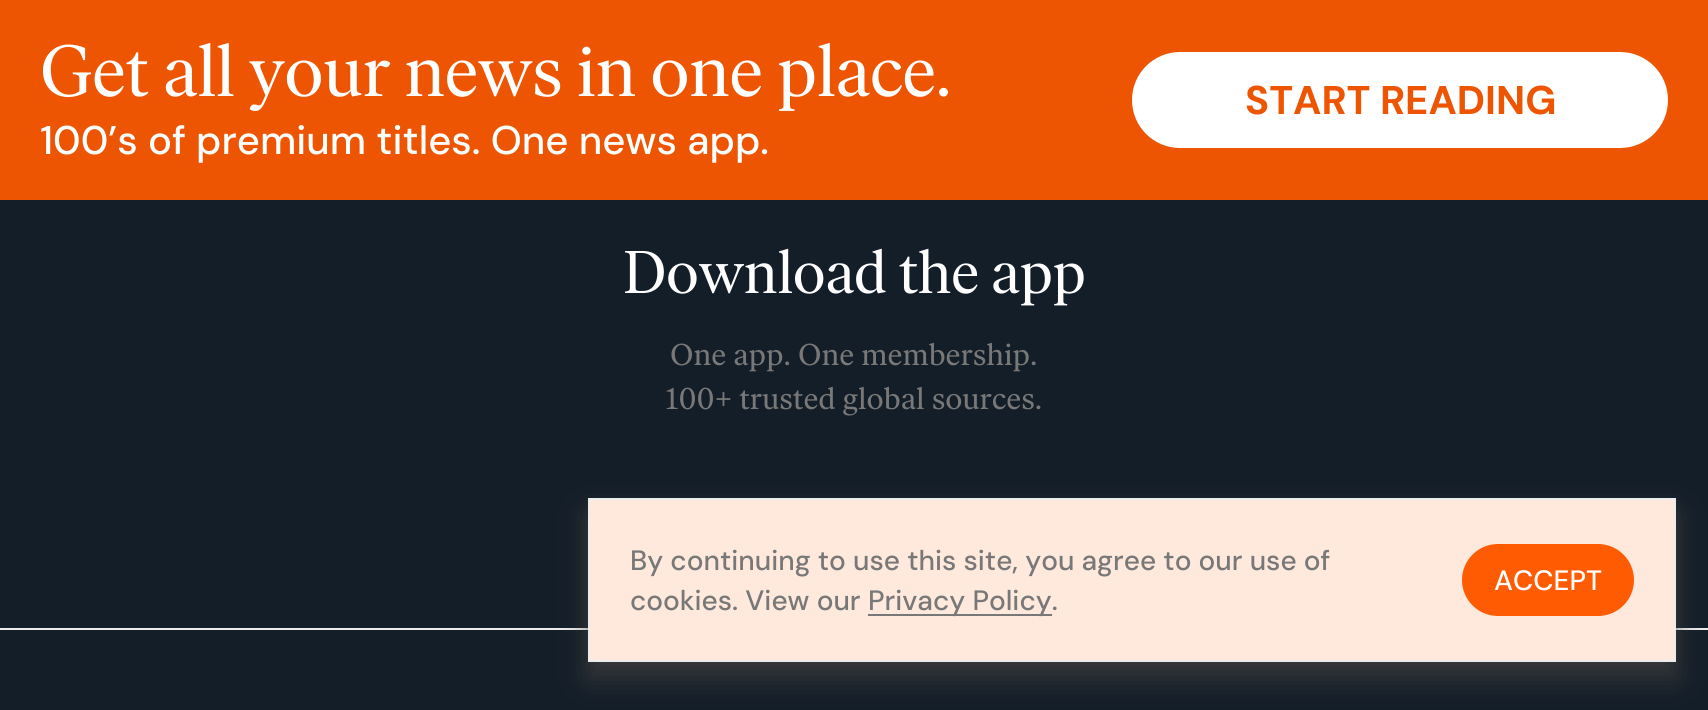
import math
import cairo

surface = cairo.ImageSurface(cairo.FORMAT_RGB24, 1708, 710)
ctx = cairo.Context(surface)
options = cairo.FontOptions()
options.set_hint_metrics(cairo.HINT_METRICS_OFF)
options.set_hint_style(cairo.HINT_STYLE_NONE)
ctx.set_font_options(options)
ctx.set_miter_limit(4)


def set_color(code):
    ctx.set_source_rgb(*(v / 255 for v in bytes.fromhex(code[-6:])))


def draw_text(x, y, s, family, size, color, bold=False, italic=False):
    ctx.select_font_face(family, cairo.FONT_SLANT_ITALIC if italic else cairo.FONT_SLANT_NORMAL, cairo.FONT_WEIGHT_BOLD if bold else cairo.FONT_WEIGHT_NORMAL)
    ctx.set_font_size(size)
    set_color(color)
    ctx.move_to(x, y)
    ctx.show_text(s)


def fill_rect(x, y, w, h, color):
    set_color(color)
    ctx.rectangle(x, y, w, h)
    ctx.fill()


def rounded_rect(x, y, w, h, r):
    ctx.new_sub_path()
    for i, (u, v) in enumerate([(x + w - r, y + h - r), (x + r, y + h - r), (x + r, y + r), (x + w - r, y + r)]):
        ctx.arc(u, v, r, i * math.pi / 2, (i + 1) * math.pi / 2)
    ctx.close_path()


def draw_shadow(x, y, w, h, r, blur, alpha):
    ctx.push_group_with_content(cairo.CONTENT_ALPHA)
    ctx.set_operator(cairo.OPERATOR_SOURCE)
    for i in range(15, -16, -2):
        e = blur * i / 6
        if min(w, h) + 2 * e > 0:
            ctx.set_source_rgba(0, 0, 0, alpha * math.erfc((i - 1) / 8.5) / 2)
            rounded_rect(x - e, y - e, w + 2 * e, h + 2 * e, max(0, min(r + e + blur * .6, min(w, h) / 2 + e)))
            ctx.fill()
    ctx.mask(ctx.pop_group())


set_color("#141e28")
ctx.paint()
fill_rect(0, 0, 1708, 200, "#ed5503")
draw_text(40, 96, "Get all your news in one place.", "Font", 72, "#ffffff")
draw_text(40, 154, "100’s of premium titles. One news app.", "DM Sans Medium", 40, "#ffffff")
rounded_rect(1132, 52, 536, 96, 48)
ctx.fill()
draw_text(1245, 114, "START READING", "DM Sans", 40, "#ed5503", bold=True)
fill_rect(0, 628, 1708, 2, "#ececec")
draw_text(623, 293, "Download the app", "Font", 60, "#ffffff")
draw_text(670, 365, "One app. One membership.", "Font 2", 30, "#787878")
draw_text(665, 409, "100+ trusted global sources.", "Font 2", 30, "#787878")
set_color("#4d4845")
draw_shadow(588, 514, 1088, 164, 0, 14, 0.6)
draw_shadow(588, 500, 1088, 164, 0, 4, 0.15)
set_color("#ffe9dd")
ctx.rectangle(589, 499, 1086, 162)
ctx.fill_preserve()
set_color("#ececec")
ctx.stroke()
draw_text(630, 570, "By continuing to use this site, you agree to our use of", "DM Sans Medium", 28, "#787878")
draw_text(630, 610, "cookies. View our", "DM Sans Medium", 28, "#787878")
fill_rect(868, 614, 184, 2, "#787878")
draw_text(868, 610, "Privacy Policy.", "DM Sans Medium", 28, "#787878")
set_color("#ff5b03")
rounded_rect(1462, 544, 172, 72, 36)
ctx.fill()
draw_text(1494, 590, "ACCEPT", "DM Sans Medium", 28, "#ffffff")
surface.write_to_png("output.png")
